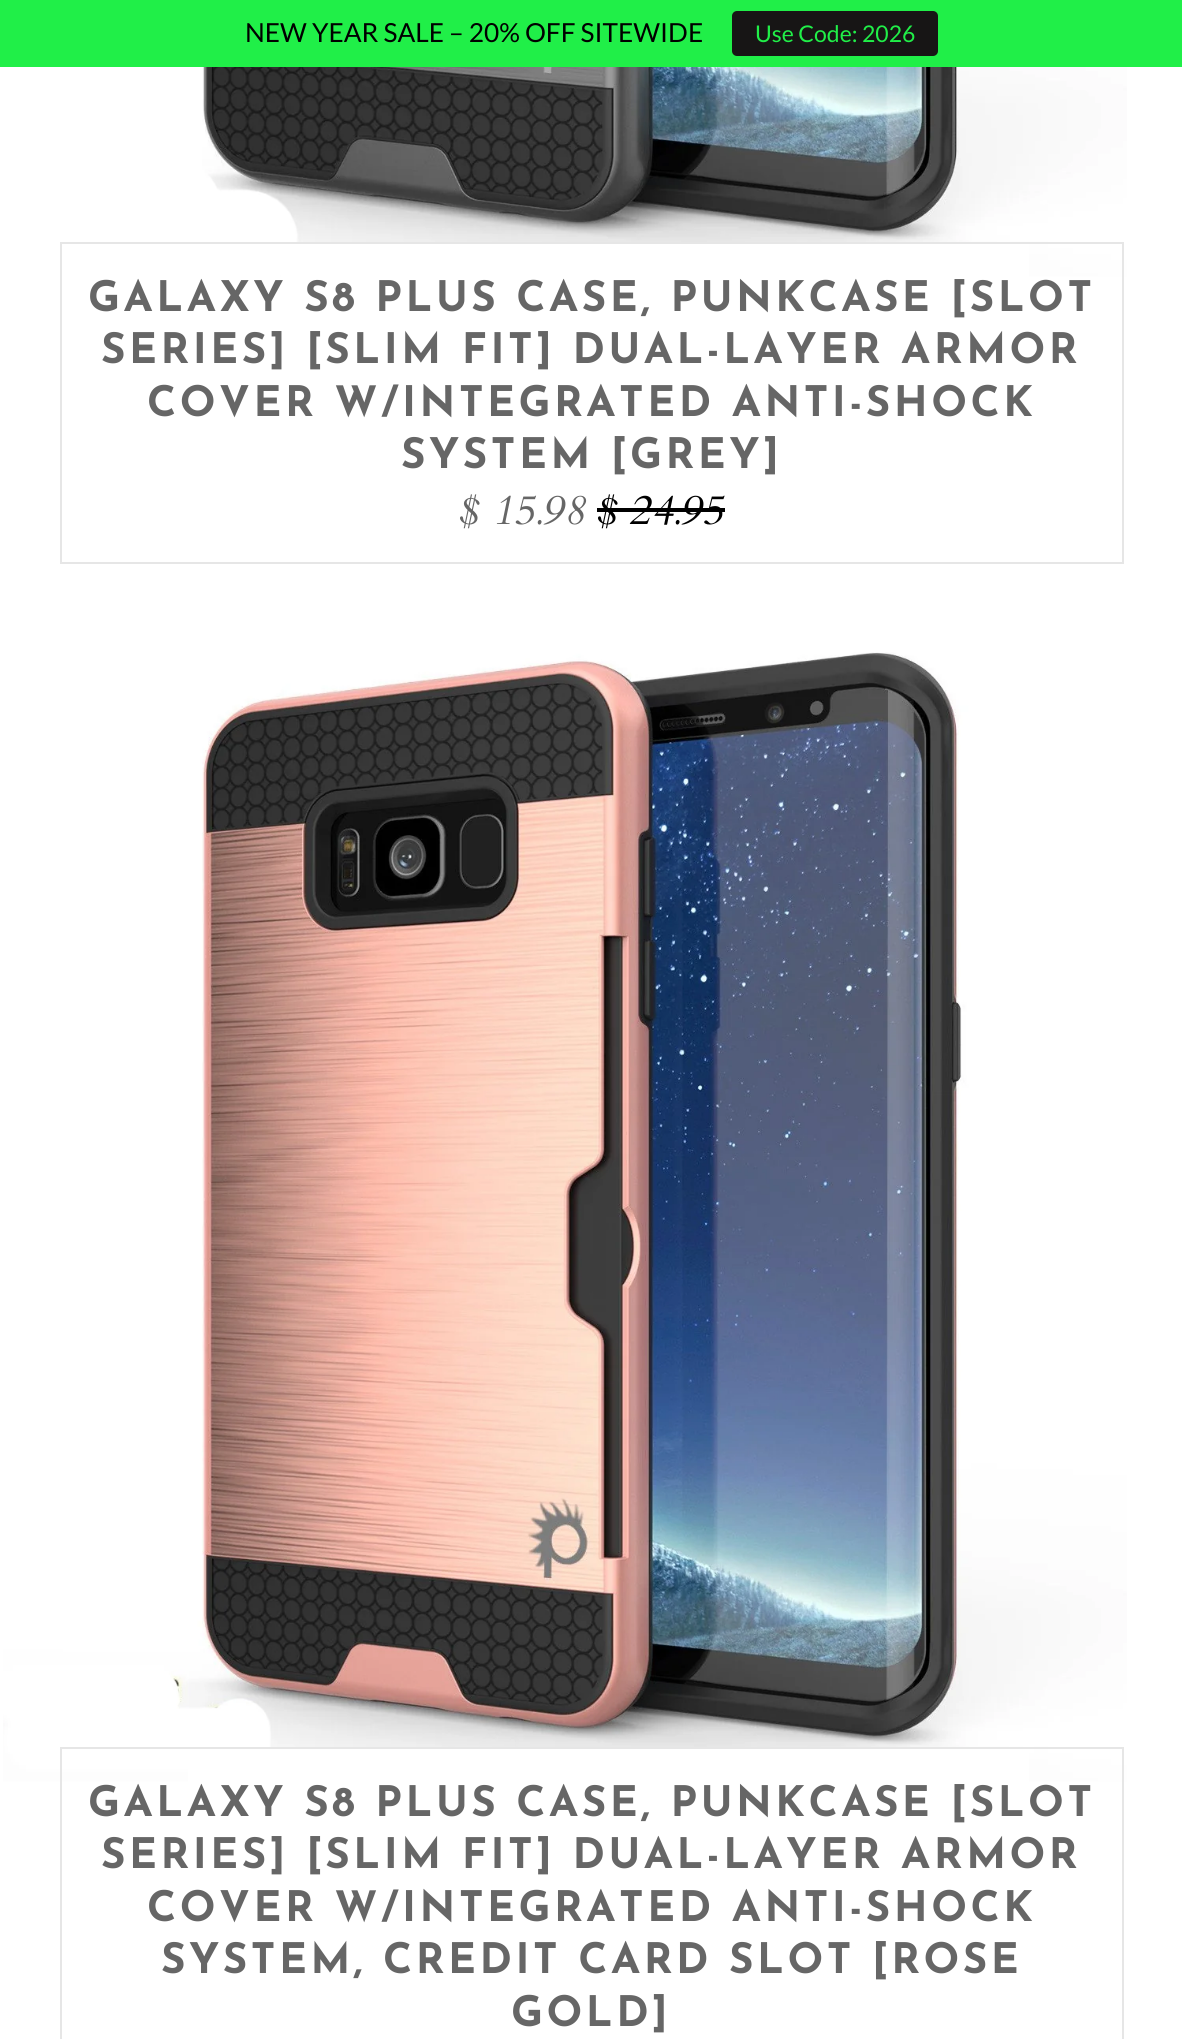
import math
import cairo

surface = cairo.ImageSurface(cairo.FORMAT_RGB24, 1182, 2039)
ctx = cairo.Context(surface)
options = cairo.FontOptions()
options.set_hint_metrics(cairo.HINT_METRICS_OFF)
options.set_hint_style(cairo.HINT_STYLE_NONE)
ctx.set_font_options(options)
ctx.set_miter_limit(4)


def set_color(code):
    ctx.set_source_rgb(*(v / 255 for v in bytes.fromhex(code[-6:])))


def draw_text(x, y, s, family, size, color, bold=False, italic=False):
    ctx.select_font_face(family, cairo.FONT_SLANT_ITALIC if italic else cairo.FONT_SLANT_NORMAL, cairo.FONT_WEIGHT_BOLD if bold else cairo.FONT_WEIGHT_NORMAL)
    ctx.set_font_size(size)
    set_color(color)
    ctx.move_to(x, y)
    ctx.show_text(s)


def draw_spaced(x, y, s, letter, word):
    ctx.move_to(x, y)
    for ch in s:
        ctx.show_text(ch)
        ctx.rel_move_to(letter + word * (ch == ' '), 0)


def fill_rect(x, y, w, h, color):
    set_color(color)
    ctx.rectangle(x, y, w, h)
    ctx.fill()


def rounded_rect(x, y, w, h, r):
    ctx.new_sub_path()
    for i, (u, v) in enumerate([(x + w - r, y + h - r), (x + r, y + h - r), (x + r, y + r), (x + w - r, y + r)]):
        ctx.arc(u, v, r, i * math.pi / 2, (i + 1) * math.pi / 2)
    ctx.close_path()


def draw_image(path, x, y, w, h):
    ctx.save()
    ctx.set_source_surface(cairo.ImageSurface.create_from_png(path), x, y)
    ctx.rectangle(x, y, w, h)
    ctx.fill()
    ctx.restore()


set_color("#ffffff")
ctx.paint()
fill_rect(0, 0, 1182, 67, "#20ef48")
draw_text(245, 42, "NEW YEAR SALE – 20% OFF SITEWIDE", "Lato", 26.25, "#000000")
set_color("#171515")
rounded_rect(732, 11, 206, 45, 5)
ctx.fill()
draw_text(755, 42, "Use Code: 2026", "Lato", 23, "#20ef48")
draw_image("assets/img1.png", 202, 67, 925, 210)
fill_rect(281, 244, 748, 33, "#ffffff")
ctx.rectangle(61, 243, 1062, 320)
set_color("#e6e6e6")
ctx.stroke()
ctx.select_font_face("Josefin Sans", cairo.FONT_SLANT_NORMAL, cairo.FONT_WEIGHT_BOLD)
ctx.set_font_size(42)
set_color("#666666")
draw_spaced(88, 311, "GALAXY S8 PLUS CASE, PUNKCASE [SLOT", 3.5, 0)
draw_spaced(101, 363, "SERIES] [SLIM FIT] DUAL-LAYER ARMOR", 3.5, 0)
draw_spaced(147, 416, "COVER W/INTEGRATED ANTI-SHOCK", 3.5, 0)
draw_spaced(401, 468, "SYSTEM [GREY]", 3.5, 0)
draw_text(459, 524, "$ 15.98", "Cardo", 42, "#666666", italic=True)
draw_text(597, 524, "$ 24.95", "Cardo", 42, "#000000", italic=True)
fill_rect(597, 508, 128, 4, "#000000")
draw_image("assets/img2.png", 3, 652, 1124, 1130)
fill_rect(188, 1749, 841, 33, "#ffffff")
ctx.rectangle(61, 1748, 1062, 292)
set_color("#e6e6e6")
ctx.stroke()
ctx.select_font_face("Josefin Sans", cairo.FONT_SLANT_NORMAL, cairo.FONT_WEIGHT_BOLD)
set_color("#666666")
draw_spaced(88, 1816, "GALAXY S8 PLUS CASE, PUNKCASE [SLOT", 3.5, 0)
draw_spaced(101, 1868, "SERIES] [SLIM FIT] DUAL-LAYER ARMOR", 3.5, 0)
draw_spaced(147, 1921, "COVER W/INTEGRATED ANTI-SHOCK", 3.5, 0)
draw_spaced(161, 1973, "SYSTEM, CREDIT CARD SLOT [ROSE", 3.5, 0)
draw_spaced(511, 2026, "GOLD]", 3.5, 0)
surface.write_to_png("output.png")
